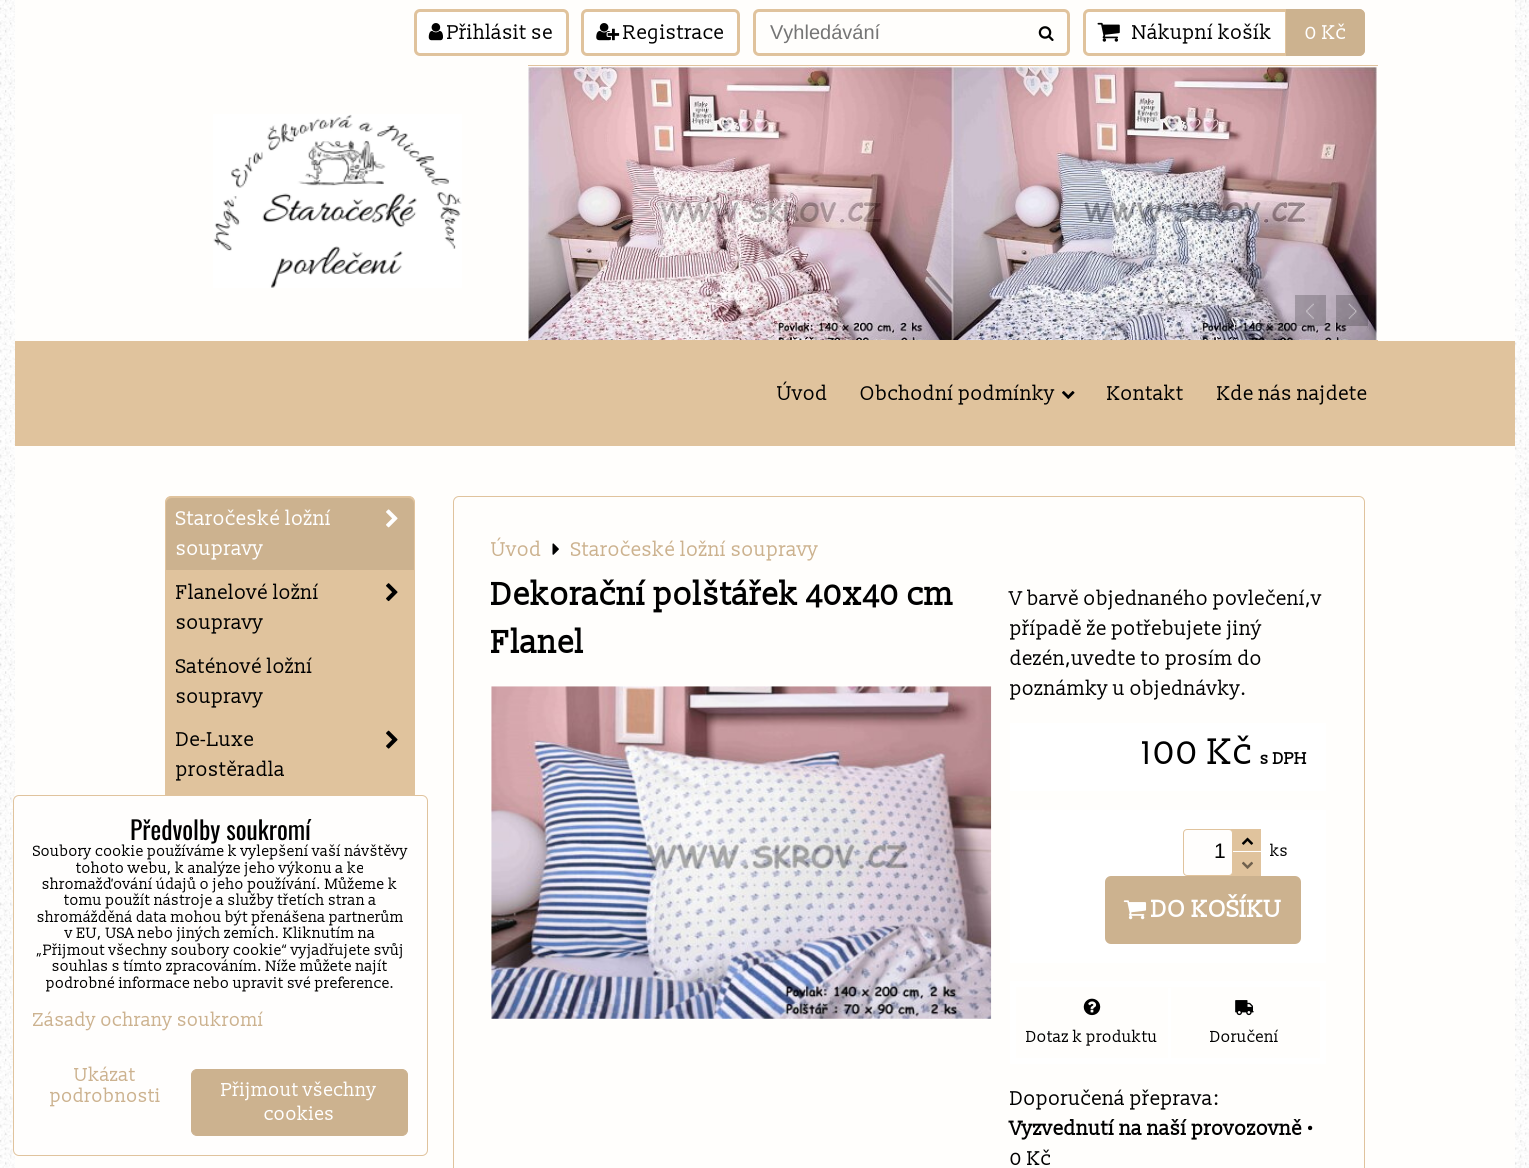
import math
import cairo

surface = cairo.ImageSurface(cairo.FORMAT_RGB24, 1529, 1168)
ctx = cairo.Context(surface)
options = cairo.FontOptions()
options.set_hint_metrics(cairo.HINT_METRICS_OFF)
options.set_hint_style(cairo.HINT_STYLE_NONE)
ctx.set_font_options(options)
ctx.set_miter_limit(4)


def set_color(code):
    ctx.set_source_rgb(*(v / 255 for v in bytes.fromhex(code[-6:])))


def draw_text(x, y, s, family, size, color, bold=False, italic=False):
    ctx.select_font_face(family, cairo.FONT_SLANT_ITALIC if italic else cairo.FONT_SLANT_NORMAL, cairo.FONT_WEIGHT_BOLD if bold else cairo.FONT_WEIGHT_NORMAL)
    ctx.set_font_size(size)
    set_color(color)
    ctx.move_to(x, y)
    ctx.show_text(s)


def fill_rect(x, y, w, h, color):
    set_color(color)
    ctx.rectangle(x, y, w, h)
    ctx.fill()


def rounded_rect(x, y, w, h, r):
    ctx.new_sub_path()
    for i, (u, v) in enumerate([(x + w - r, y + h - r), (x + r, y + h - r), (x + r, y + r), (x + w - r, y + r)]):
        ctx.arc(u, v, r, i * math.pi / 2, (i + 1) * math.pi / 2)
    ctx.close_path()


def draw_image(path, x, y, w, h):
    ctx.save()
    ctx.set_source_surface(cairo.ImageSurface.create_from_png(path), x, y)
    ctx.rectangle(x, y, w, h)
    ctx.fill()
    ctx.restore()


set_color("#ffffff")
ctx.paint()
draw_image("assets/img1.png", 0, 0, 1529, 1168)
fill_rect(15, 0, 1500, 1168, "#fffefc")
set_color("#ffffff")
rounded_rect(415.5, 10.5, 152, 44, 4.5)
ctx.fill_preserve()
set_color("#e0c39d")
ctx.set_line_width(3)
ctx.stroke()
draw_image("assets/img2.png", 428, 23, 15, 18)
draw_text(447, 39, "Přihlásit se", "Slabo 13px", 20, "#000000")
set_color("#ffffff")
rounded_rect(582.5, 10.5, 156, 44, 4.5)
ctx.fill_preserve()
set_color("#e0c39d")
ctx.stroke()
draw_image("assets/img3.png", 596, 23, 24, 18)
draw_text(623, 39, "Registrace", "Slabo 13px", 20, "#000000")
rounded_rect(754.5, 10.5, 314, 44, 4.5)
set_color("#e0c39d")
ctx.stroke()
draw_text(770, 39, "Vyhledávání", "Liberation Sans", 20, "#757575")
draw_image("assets/img4.png", 1038, 26, 16, 15)
set_color("#ffffff")
rounded_rect(1084.5, 10.5, 279, 44, 4.5)
ctx.fill_preserve()
set_color("#e0c39d")
ctx.stroke()
draw_image("assets/img5.png", 1097, 22, 23, 20)
draw_text(1132, 39, "Nákupní košík", "Slabo 13px", 20, "#000000")
set_color("#ccb28f")
ctx.new_path()
ctx.move_to(1285, 9)
ctx.line_to(1359, 9)
ctx.curve_to(1362.5, 9, 1365, 11.5, 1365, 15)
ctx.line_to(1365, 50)
ctx.curve_to(1365, 53.5, 1362.5, 56, 1359, 56)
ctx.line_to(1285, 56)
ctx.close_path()
ctx.fill()
fill_rect(1285, 9, 1, 47, "#e0c39d")
draw_text(1305, 39, "0 Kč", "Slabo 13px", 20, "#ffffff")
draw_image("assets/img6.png", 213, 114, 249, 174)
fill_rect(528, 65, 850, 1, "#e0c39d")
fill_rect(528, 340, 850, 1, "#e0c39d")
draw_image("assets/img7.png", 528, 66, 849, 274)
ctx.set_source_rgba(0, 0, 0, 0.2)
ctx.rectangle(1295, 295, 31, 31)
ctx.fill()
draw_image("assets/img8.png", 1306, 303, 8, 16)
ctx.rectangle(1336, 295, 32, 31)
ctx.fill()
draw_image("assets/img9.png", 1348, 303, 9, 16)
fill_rect(15, 341, 1500, 105, "#e0c39d")
draw_text(777, 400, "Úvod", "Slabo 13px", 20, "#000000")
draw_text(860, 400, "Obchodní podmínky", "Slabo 13px", 20, "#000000")
draw_image("assets/img10.png", 1062, 391, 13, 8)
draw_text(1107, 400, "Kontakt", "Slabo 13px", 20, "#000000")
draw_text(1217, 400, "Kde nás najdete", "Slabo 13px", 20, "#000000")
set_color("#e0c39d")
rounded_rect(165.5, 496.5, 249, 618, 5.5)
ctx.fill_preserve()
ctx.set_line_width(1)
ctx.stroke()
set_color("#ccb28f")
ctx.new_path()
ctx.move_to(172, 498)
ctx.line_to(408, 498)
ctx.curve_to(411.5, 498, 414, 500.5, 414, 504)
ctx.line_to(414, 571)
ctx.line_to(166, 571)
ctx.line_to(166, 504)
ctx.curve_to(166, 500.5, 168.5, 498, 172, 498)
ctx.close_path()
ctx.fill()
fill_rect(166, 570, 248, 1, "#e0c39d")
draw_text(176, 525, "Staročeské ložní", "Slabo 13px", 20, "#ffffff")
draw_image("assets/img11.png", 386, 509, 12, 19)
draw_text(176, 555, "soupravy", "Slabo 13px", 20, "#ffffff")
draw_text(176, 599, "Flanelové ložní", "Slabo 13px", 20, "#000000")
draw_image("assets/img12.png", 386, 583, 12, 19)
draw_text(176, 629, "soupravy", "Slabo 13px", 20, "#000000")
draw_text(176, 673, "Saténové ložní", "Slabo 13px", 20, "#000000")
draw_text(176, 703, "soupravy", "Slabo 13px", 20, "#000000")
draw_text(176, 746, "De-Luxe", "Slabo 13px", 20, "#000000")
draw_image("assets/img13.png", 386, 730, 12, 19)
draw_text(176, 776, "prostěradla", "Slabo 13px", 20, "#000000")
rounded_rect(453.5, 496.5, 911, 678, 5.5)
set_color("#e0c39d")
ctx.stroke()
draw_text(491, 556, "Úvod", "Slabo 13px", 20, "#ccb28f")
draw_image("assets/img14.png", 552, 543, 7, 12)
draw_text(571, 556, "Staročeské ložní soupravy", "Slabo 13px", 20, "#ccb28f")
draw_text(491, 605, "Dekorační polštářek 40x40 cm", "Slabo 13px", 32, "#000000", bold=True)
draw_text(491, 653, "Flanel", "Slabo 13px", 32, "#000000", bold=True)
draw_image("assets/img15.png", 491, 686, 501, 333)
draw_text(1010, 605, "V barvě objednaného povlečení,v", "Slabo 13px", 20, "#000000")
draw_text(1010, 635, "případě že potřebujete jiný", "Slabo 13px", 20, "#000000")
draw_text(1010, 665, "dezén,uvedte to prosím do", "Slabo 13px", 20, "#000000")
draw_text(1010, 695, "poznámky u objednávky.", "Slabo 13px", 20, "#000000")
fill_rect(1010, 723, 316, 68, "#ffffff")
draw_text(1142, 764, "100 Kč", "Slabo 13px", 37, "#000000")
draw_text(1260, 764, "s DPH", "Slabo 13px", 16.5, "#000000", bold=True)
fill_rect(1010, 810, 316, 153, "#ffffff")
fill_rect(1229, 829, 32, 47, "#e0c39d")
set_color("#fffefd")
rounded_rect(1183.5, 829.5, 49, 46, 3.5)
ctx.fill_preserve()
set_color("#e0c39d")
ctx.stroke()
draw_text(1214, 858, "1", "Liberation Sans", 21, "#000000")
draw_image("assets/img16.png", 1241, 837, 13, 8)
fill_rect(1233, 851, 28, 1, "#ffffff")
draw_image("assets/img17.png", 1242, 861, 11, 8)
draw_text(1270, 856, "ks", "Slabo 13px", 16, "#000000")
set_color("#ccb28f")
rounded_rect(1105, 876, 196, 68, 6)
ctx.fill()
draw_image("assets/img18.png", 1123, 900, 24, 20)
draw_text(1151, 917, "DO KOŠÍKU", "Slabo 13px", 24, "#ffffff", bold=True)
ctx.rectangle(1013, 984, 310, 77)
ctx.set_line_width(6)
ctx.stroke()
draw_image("assets/img19.png", 1083, 998, 18, 18)
draw_text(1026, 1042, "Dotaz k produktu", "Slabo 13px", 16, "#000000")
fill_rect(1168, 988, 3, 70, "#ffffff")
draw_image("assets/img20.png", 1235, 1000, 19, 16)
draw_text(1210, 1042, "Doručení", "Slabo 13px", 16, "#000000")
draw_text(1010, 1105, "Doporučená přeprava:", "Slabo 13px", 20, "#000000")
draw_text(1010, 1135, "Vyzvednutí na naší provozovně", "Slabo 13px", 20, "#000000", bold=True)
draw_text(1307, 1135, "•", "Slabo 13px", 20, "#000000")
draw_text(1010, 1165, "0 Kč", "Slabo 13px", 20, "#000000")
set_color("#fffefd")
rounded_rect(13.5, 795.5, 414, 360, 5.5)
ctx.fill_preserve()
set_color("#e0c39d")
ctx.set_line_width(1)
ctx.stroke()
draw_text(130, 840, "Předvolby soukromí", "Oswald", 25.5, "#000000")
draw_text(33, 856, "Soubory cookie používáme k vylepšení vaší návštěvy", "Slabo 13px", 15, "#000000")
draw_text(76, 873, "tohoto webu, k analýze jeho výkonu a ke", "Slabo 13px", 15, "#000000")
draw_text(42, 889, "shromažďování údajů o jeho používání. Můžeme k", "Slabo 13px", 15, "#000000")
draw_text(64, 905, "tomu použít nástroje a služby třetích stran a", "Slabo 13px", 15, "#000000")
draw_text(37, 922, "shromážděná data mohou být přenášena partnerům", "Slabo 13px", 15, "#000000")
draw_text(65, 938, "v EU, USA nebo jiných zemích. Kliknutím na", "Slabo 13px", 15, "#000000")
draw_text(36, 955, "„Přijmout všechny soubory cookie“ vyjadřujete svůj", "Slabo 13px", 15, "#000000")
draw_text(52, 971, "souhlas s tímto zpracováním. Níže můžete najít", "Slabo 13px", 15, "#000000")
draw_text(46, 988, "podrobné informace nebo upravit své preference.", "Slabo 13px", 15, "#000000")
draw_text(33, 1026, "Zásady ochrany soukromí", "Slabo 13px", 18.75, "#ccb28f")
draw_text(74, 1081, "Ukázat", "Slabo 13px", 18.75, "#ccb28f")
draw_text(50, 1102, "podrobnosti", "Slabo 13px", 18.75, "#ccb28f")
rounded_rect(191.5, 1069.5, 216, 66, 5.5)
ctx.fill_preserve()
ctx.stroke()
draw_text(221, 1096, "Přijmout všechny", "Slabo 13px", 18.75, "#ffffff")
draw_text(264, 1120, "cookies", "Slabo 13px", 18.75, "#ffffff")
surface.write_to_png("output.png")
